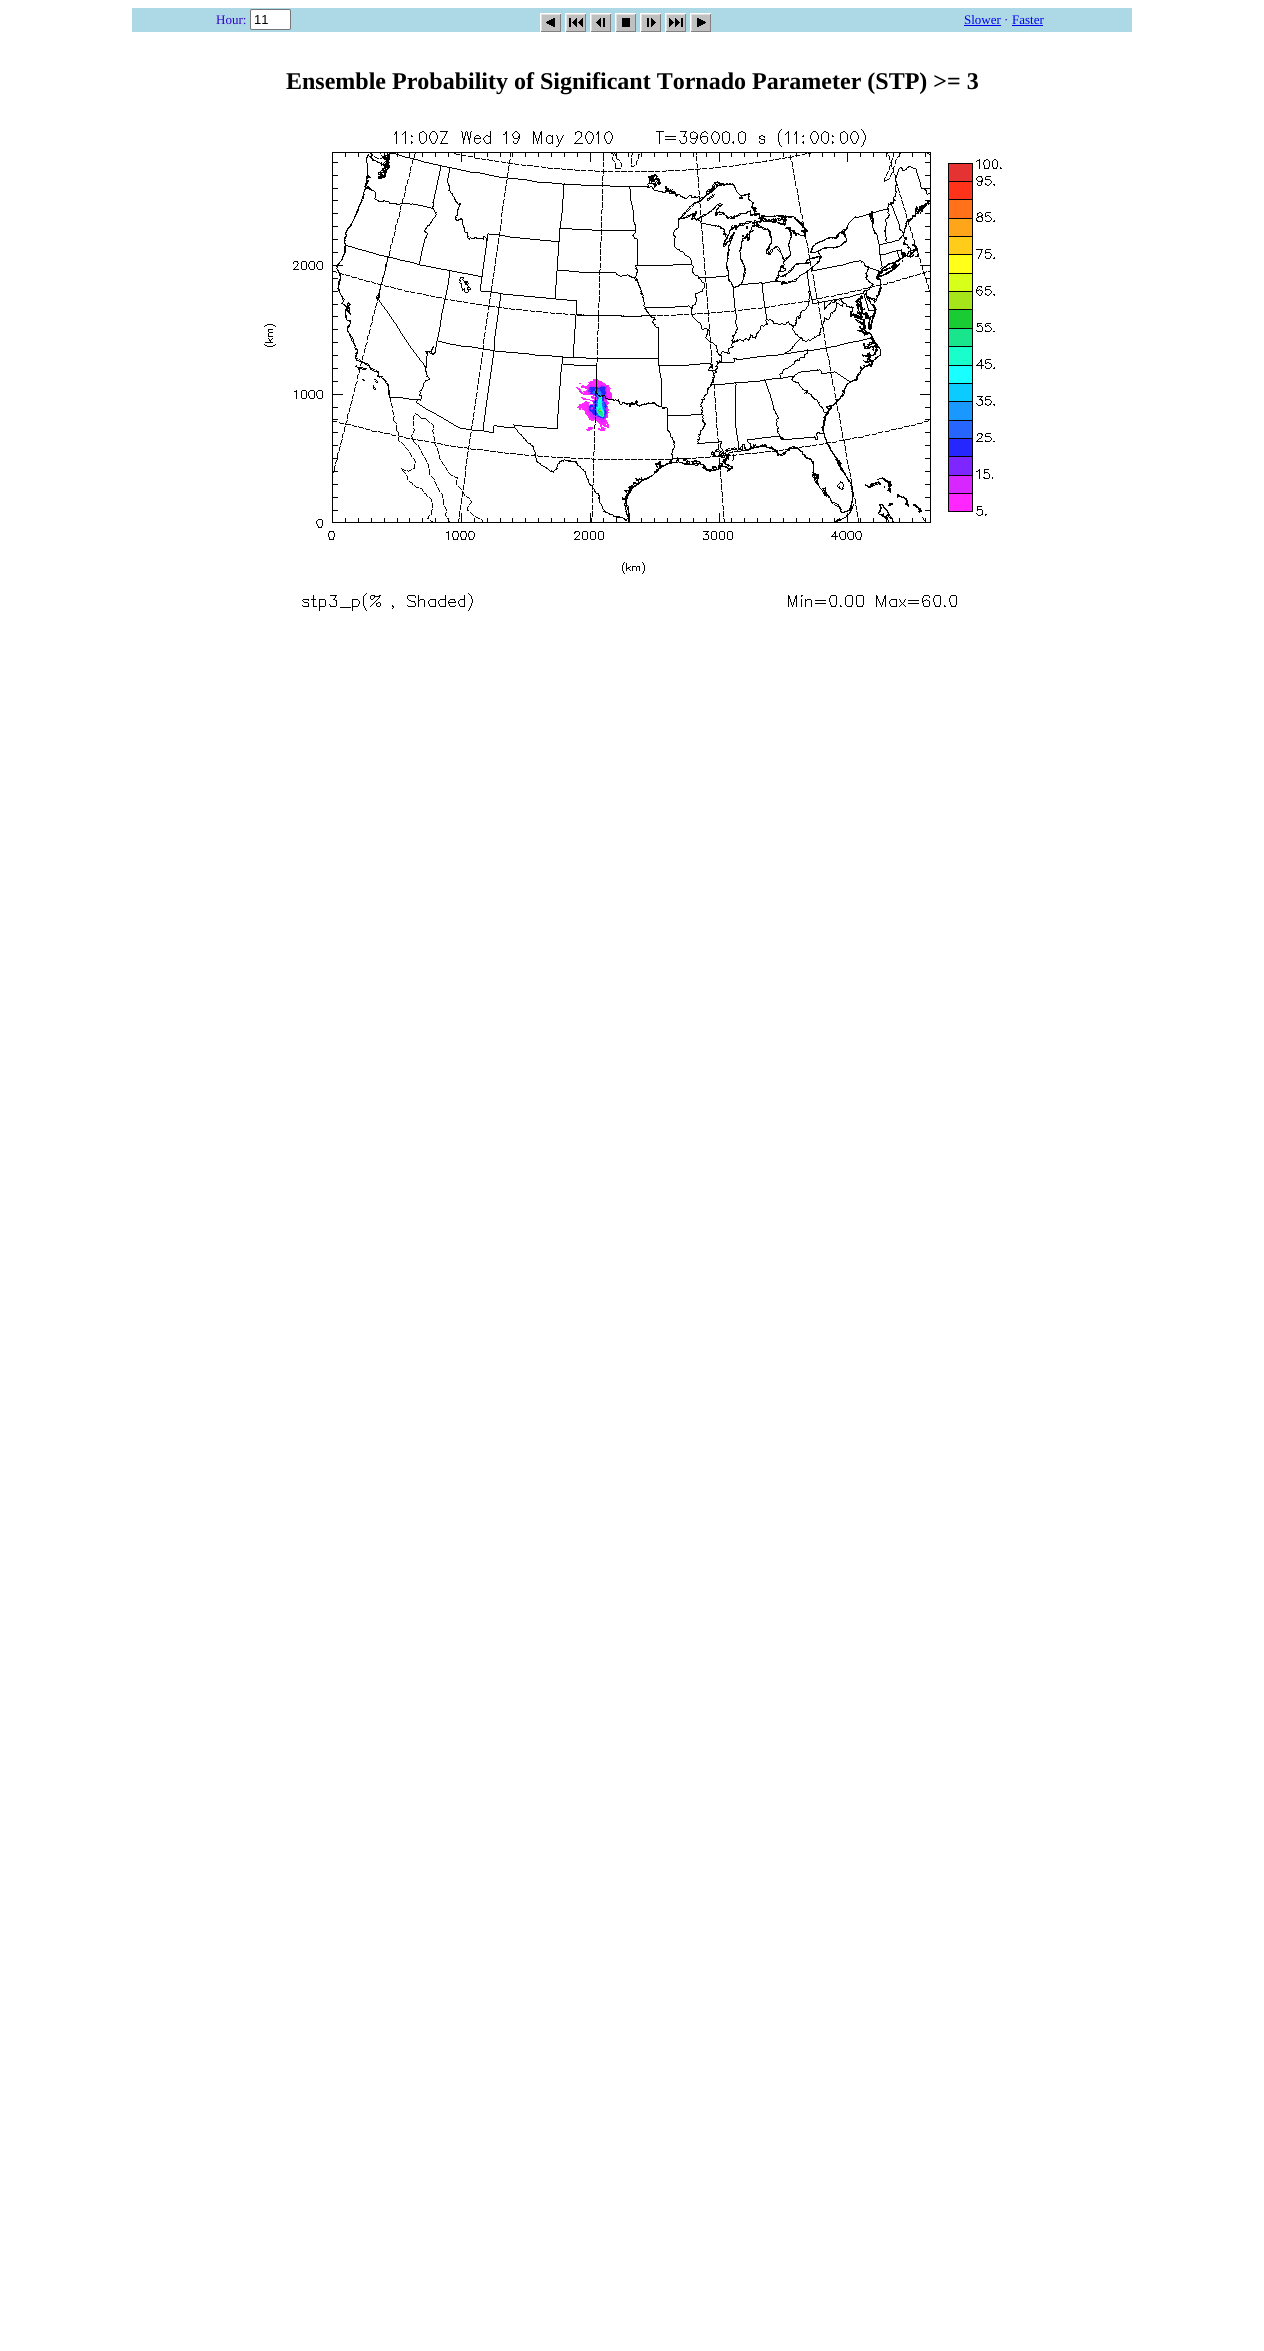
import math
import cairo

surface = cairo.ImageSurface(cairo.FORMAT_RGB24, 1264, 2351)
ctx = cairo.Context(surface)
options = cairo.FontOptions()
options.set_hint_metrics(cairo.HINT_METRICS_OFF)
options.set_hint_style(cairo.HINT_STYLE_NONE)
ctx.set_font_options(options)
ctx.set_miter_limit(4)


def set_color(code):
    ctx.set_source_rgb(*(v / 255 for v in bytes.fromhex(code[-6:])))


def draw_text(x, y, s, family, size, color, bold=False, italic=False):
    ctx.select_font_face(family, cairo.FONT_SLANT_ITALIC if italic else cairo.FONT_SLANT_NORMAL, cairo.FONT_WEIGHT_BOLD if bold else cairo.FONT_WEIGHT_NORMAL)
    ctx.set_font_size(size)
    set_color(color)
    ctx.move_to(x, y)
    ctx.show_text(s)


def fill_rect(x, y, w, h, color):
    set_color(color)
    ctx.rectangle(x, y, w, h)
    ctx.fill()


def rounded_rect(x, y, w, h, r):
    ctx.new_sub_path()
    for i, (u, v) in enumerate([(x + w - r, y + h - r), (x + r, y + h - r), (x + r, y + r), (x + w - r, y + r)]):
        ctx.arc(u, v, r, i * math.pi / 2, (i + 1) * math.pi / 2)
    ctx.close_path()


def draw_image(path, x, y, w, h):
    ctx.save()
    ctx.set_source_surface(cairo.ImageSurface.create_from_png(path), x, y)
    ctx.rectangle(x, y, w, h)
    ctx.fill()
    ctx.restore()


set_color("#ffffff")
ctx.paint()
fill_rect(132, 8, 1000, 24, "#add8e6")
draw_text(216, 24, "Hour:", "Liberation Serif", 13, "#3300cc")
set_color("#ffffff")
rounded_rect(250.5, 9.5, 40, 20, 1.5)
ctx.fill_preserve()
set_color("#767676")
ctx.set_line_width(1)
ctx.stroke()
draw_text(254, 24, "11", "Liberation Sans", 13, "#000000")
draw_image("assets/img1.png", 540, 13, 21, 19)
draw_image("assets/img2.png", 565, 13, 21, 19)
draw_image("assets/img3.png", 590, 13, 21, 19)
draw_image("assets/img4.png", 615, 13, 21, 19)
draw_image("assets/img5.png", 640, 13, 21, 19)
draw_image("assets/img6.png", 665, 13, 21, 19)
draw_image("assets/img7.png", 690, 13, 21, 19)
draw_text(964, 24, "Slower", "Liberation Serif", 13, "#0000ee")
fill_rect(964, 25, 37, 1, "#0000ee")
draw_text(1004, 24, "·", "Liberation Serif", 13, "#3300cc")
draw_text(1012, 24, "Faster", "Liberation Serif", 13, "#0000ee")
fill_rect(1012, 25, 31, 1, "#0000ee")
draw_text(286, 89, "Ensemble Probability of Significant Tornado Parameter (STP) >= 3", "Liberation Serif", 24, "#000000", bold=True)
draw_image("assets/img8.png", 264, 129, 738, 482)
surface.write_to_png("output.png")
